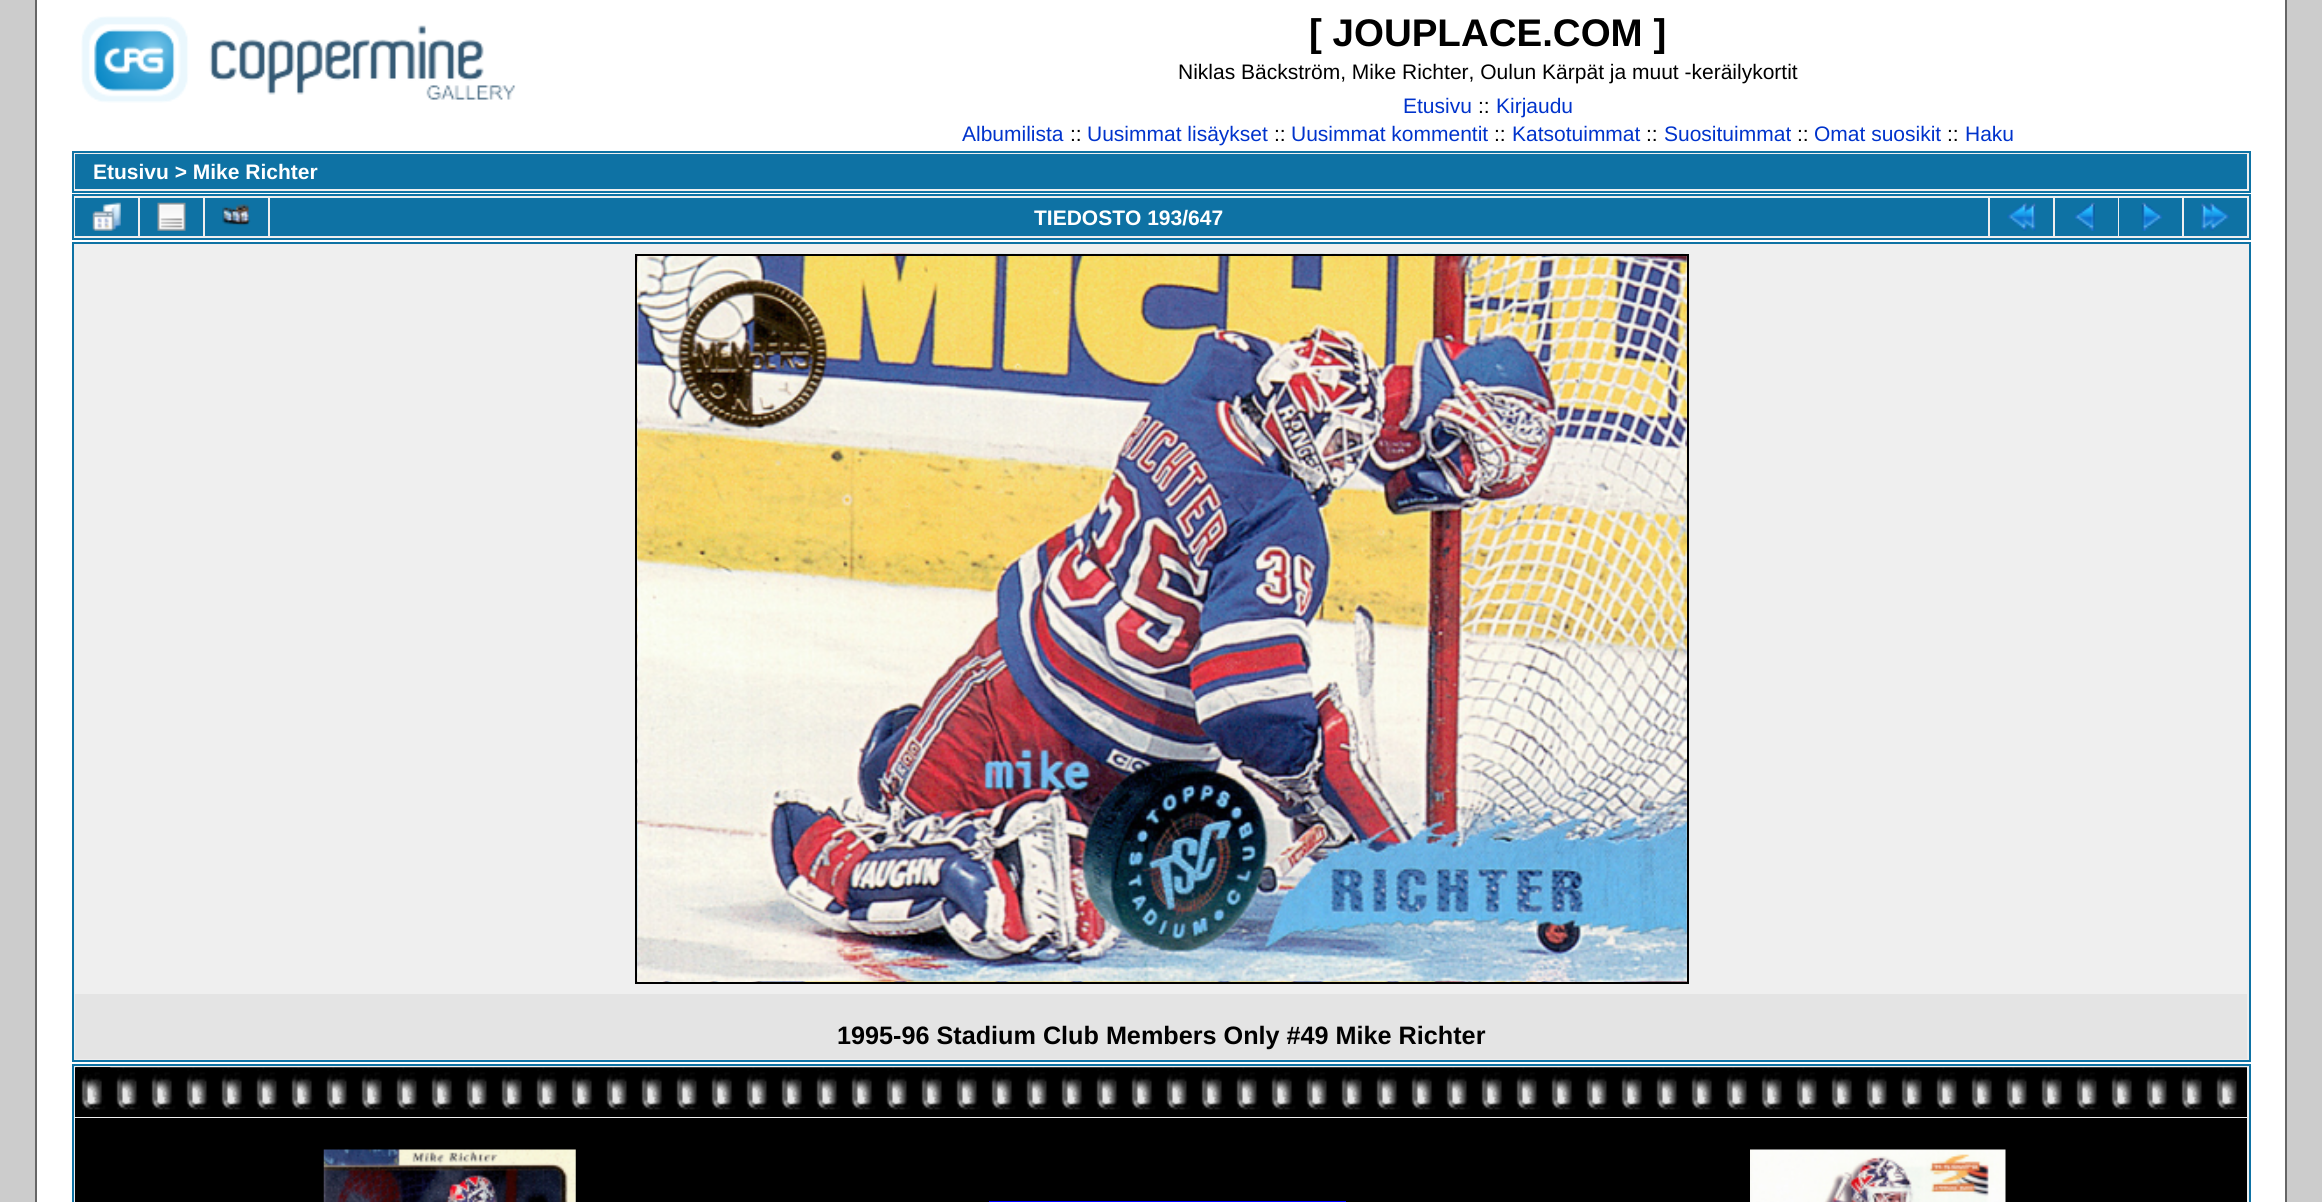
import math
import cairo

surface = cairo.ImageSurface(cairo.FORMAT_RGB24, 2322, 1202)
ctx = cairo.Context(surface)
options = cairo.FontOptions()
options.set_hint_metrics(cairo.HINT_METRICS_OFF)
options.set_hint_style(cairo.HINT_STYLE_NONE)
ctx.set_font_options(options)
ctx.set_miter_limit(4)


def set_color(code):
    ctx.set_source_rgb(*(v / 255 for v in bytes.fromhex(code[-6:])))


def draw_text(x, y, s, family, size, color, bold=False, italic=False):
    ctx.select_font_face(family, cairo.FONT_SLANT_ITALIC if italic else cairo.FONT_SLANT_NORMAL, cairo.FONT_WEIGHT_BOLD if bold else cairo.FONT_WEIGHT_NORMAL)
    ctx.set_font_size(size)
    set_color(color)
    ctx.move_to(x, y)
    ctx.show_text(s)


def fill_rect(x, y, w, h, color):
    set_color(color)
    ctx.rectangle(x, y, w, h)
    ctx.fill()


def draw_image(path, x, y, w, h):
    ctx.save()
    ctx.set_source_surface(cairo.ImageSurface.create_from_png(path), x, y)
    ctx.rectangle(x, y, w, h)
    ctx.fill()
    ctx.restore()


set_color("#cccccc")
ctx.paint()
set_color("#ffffff")
ctx.rectangle(36, -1, 2250, 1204)
ctx.fill_preserve()
set_color("#666666")
ctx.stroke()
draw_image("assets/img1.png", 81, 16, 435, 87)
draw_text(1309, 46, "[ JOUPLACE.COM ]", "Liberation Sans", 38.5, "#000000", bold=True)
draw_text(1178, 79, "Niklas Bäckström, Mike Richter, Oulun Kärpät ja muut -keräilykortit", "Liberation Sans", 21, "#000000")
draw_text(1403, 113, "Etusivu", "Liberation Sans", 21, "#0033cc")
draw_text(1478, 113, "::", "Liberation Sans", 21, "#000000")
draw_text(1496, 113, "Kirjaudu", "Liberation Sans", 21, "#0033cc")
draw_text(962, 141, "Albumilista", "Liberation Sans", 21, "#0033cc")
draw_text(1070, 141, "::", "Liberation Sans", 21, "#000000")
draw_text(1087, 141, "Uusimmat lisäykset", "Liberation Sans", 21, "#0033cc")
draw_text(1274, 141, "::", "Liberation Sans", 21, "#000000")
draw_text(1291, 141, "Uusimmat kommentit", "Liberation Sans", 21, "#0033cc")
draw_text(1494, 141, "::", "Liberation Sans", 21, "#000000")
draw_text(1512, 141, "Katsotuimmat", "Liberation Sans", 21, "#0033cc")
draw_text(1646, 141, "::", "Liberation Sans", 21, "#000000")
draw_text(1664, 141, "Suosituimmat", "Liberation Sans", 21, "#0033cc")
draw_text(1797, 141, "::", "Liberation Sans", 21, "#000000")
draw_text(1814, 141, "Omat suosikit", "Liberation Sans", 21, "#0033cc")
draw_text(1947, 141, "::", "Liberation Sans", 21, "#000000")
draw_text(1965, 141, "Haku", "Liberation Sans", 21, "#0033cc")
set_color("#efefef")
ctx.rectangle(73, 152, 2177, 40)
ctx.fill_preserve()
set_color("#0e72a4")
ctx.stroke()
fill_rect(75, 154, 2172, 35, "#0e72a4")
draw_text(93, 179, "Etusivu > Mike Richter", "Liberation Sans", 21, "#ffffff", bold=True)
set_color("#efefef")
ctx.rectangle(73, 195, 2177, 44)
ctx.fill_preserve()
set_color("#0e72a4")
ctx.stroke()
fill_rect(75, 198, 63, 38, "#0e72a4")
draw_image("assets/img2.png", 92, 202, 29, 29)
fill_rect(140, 198, 63, 38, "#0e72a4")
draw_image("assets/img3.png", 157, 202, 29, 29)
fill_rect(205, 198, 63, 38, "#0e72a4")
draw_image("assets/img4.png", 222, 204, 29, 22)
fill_rect(270, 198, 1718, 38, "#0e72a4")
draw_text(1034, 225, "TIEDOSTO 193/647", "Liberation Sans", 21, "#ffffff", bold=True)
fill_rect(1990, 198, 63, 38, "#0e72a4")
draw_image("assets/img5.png", 2007, 202, 29, 29)
fill_rect(2055, 198, 63, 38, "#0e72a4")
draw_image("assets/img6.png", 2073, 202, 22, 29)
fill_rect(2119, 198, 63, 38, "#0e72a4")
draw_image("assets/img7.png", 2141, 202, 22, 29)
fill_rect(2184, 198, 63, 38, "#0e72a4")
draw_image("assets/img8.png", 2201, 202, 29, 29)
set_color("#efefef")
ctx.rectangle(73, 243, 2177, 818)
ctx.fill_preserve()
set_color("#0e72a4")
ctx.stroke()
draw_image("assets/img9.png", 635, 253, 1054, 729)
ctx.rectangle(636, 255, 1052, 728)
set_color("#000000")
ctx.stroke()
fill_rect(75, 994, 2172, 65, "#e4e4e4")
draw_text(837, 1044, "1995-96 Stadium Club Members Only #49 Mike Richter", "Liberation Sans", 25.2, "#000000", bold=True)
set_color("#efefef")
ctx.rectangle(73, 1065, 2177, 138)
ctx.fill_preserve()
set_color("#0e72a4")
ctx.stroke()
fill_rect(75, 1068, 2172, 49, "#000000")
draw_image("assets/img10.png", 75, 1067, 2172, 43)
draw_image("assets/img11.png", 75, 1067, 36, 38)
fill_rect(75, 1118, 2172, 84, "#000000")
draw_image("assets/img12.png", 323, 1149, 253, 53)
draw_image("assets/img13.png", 1750, 1149, 256, 53)
ctx.rectangle(991, 1203, 353, 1)
set_color("#0000ff")
ctx.set_line_width(4)
ctx.stroke()
surface.write_to_png("output.png")
